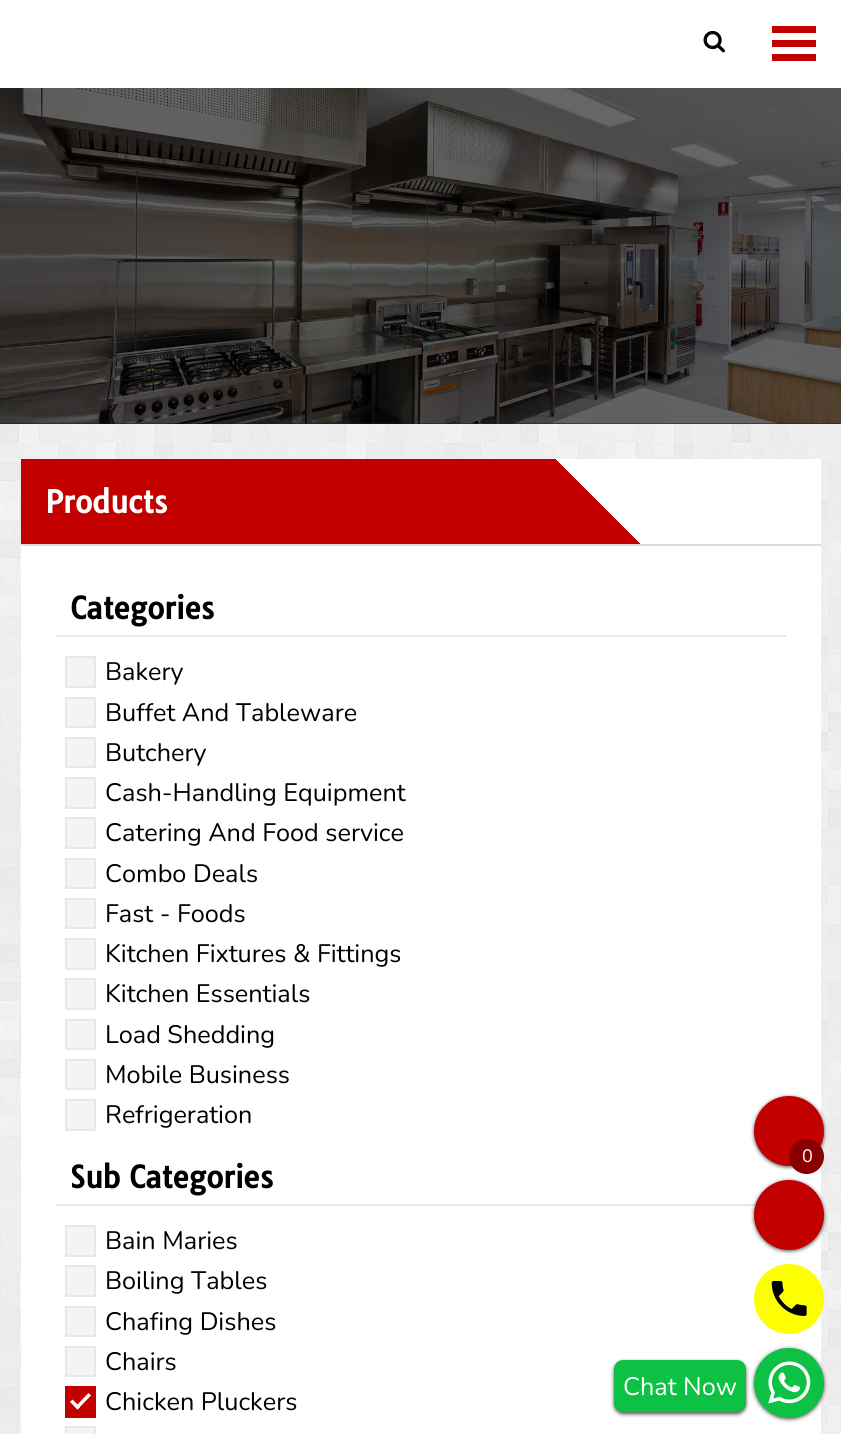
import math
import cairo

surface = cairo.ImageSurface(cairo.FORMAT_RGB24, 841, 1434)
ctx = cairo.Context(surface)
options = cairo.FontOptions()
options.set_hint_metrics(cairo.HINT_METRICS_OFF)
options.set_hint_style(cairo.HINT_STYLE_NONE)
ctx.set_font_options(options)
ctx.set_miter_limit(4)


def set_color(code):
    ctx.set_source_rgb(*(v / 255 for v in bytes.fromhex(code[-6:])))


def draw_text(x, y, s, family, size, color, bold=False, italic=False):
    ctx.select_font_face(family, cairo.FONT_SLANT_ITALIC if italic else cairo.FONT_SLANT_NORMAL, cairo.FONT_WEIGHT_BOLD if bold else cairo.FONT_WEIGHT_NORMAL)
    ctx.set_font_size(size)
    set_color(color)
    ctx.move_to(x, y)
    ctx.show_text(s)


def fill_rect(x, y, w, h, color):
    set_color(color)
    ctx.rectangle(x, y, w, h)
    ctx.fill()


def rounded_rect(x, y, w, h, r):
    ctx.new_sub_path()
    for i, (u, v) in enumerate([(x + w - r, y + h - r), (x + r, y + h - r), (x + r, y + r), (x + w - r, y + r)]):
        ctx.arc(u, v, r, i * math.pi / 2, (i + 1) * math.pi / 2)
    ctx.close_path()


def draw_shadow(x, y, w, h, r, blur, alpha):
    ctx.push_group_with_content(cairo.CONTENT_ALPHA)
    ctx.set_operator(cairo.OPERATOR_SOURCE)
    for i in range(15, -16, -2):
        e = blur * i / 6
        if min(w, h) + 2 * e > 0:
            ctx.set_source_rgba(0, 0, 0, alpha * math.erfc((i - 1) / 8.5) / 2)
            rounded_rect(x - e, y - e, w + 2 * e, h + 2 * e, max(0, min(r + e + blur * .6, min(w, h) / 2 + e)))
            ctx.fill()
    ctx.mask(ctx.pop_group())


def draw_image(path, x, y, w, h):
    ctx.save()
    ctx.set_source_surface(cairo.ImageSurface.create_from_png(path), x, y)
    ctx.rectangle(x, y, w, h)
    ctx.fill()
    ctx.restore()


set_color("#ffffff")
ctx.paint()
draw_image("assets/img1.png", 0, 424, 841, 1010)
draw_image("assets/img2.png", 703, 30, 22, 23)
fill_rect(772, 26, 44, 7, "#c30000")
fill_rect(772, 40, 44, 7, "#c30000")
fill_rect(772, 54, 44, 7, "#c30000")
fill_rect(0, 423, 841, 1, "#444444")
draw_image("assets/img3.png", 0, 88, 841, 336)
ctx.set_source_rgba(0, 0, 0, 0.6)
ctx.rectangle(0, 88, 841, 336)
ctx.fill()
fill_rect(21, 546, 800, 888, "#ffffff")
gradient = cairo.LinearGradient(200, 723, 642, 280)
gradient.add_color_stop_rgba(0, 0.765, 0, 0, 1)
gradient.add_color_stop_rgba(0.7, 0.765, 0, 0, 1)
gradient.add_color_stop_rgba(0.7, 1, 1, 1, 1)
gradient.add_color_stop_rgba(1, 1, 1, 1, 1)
ctx.set_source(gradient)
ctx.rectangle(21, 459, 800, 85)
ctx.fill()
fill_rect(21, 544, 800, 2, "#dddddd")
draw_text(45, 513, "Products", "Tauri", 30, "#ffffff", bold=True)
fill_rect(56, 635, 730, 2, "#e8e8e8")
draw_text(70, 619, "Categories", "Tauri", 29.5, "#000000", bold=True)
set_color("#f4f4f4")
ctx.rectangle(66, 657, 29, 30)
ctx.fill_preserve()
set_color("#e8e8e8")
ctx.stroke()
draw_text(105, 680, "Bakery", "Nunito ExtraLight", 25.25, "#000000")
set_color("#f4f4f4")
ctx.rectangle(66, 698, 29, 29)
ctx.fill_preserve()
set_color("#e8e8e8")
ctx.stroke()
draw_text(105, 721, "Buffet And Tableware", "Nunito ExtraLight", 25.25, "#000000")
set_color("#f4f4f4")
ctx.rectangle(66, 738, 29, 29)
ctx.fill_preserve()
set_color("#e8e8e8")
ctx.stroke()
draw_text(105, 761, "Butchery", "Nunito ExtraLight", 25.25, "#000000")
set_color("#f4f4f4")
ctx.rectangle(66, 778, 29, 30)
ctx.fill_preserve()
set_color("#e8e8e8")
ctx.stroke()
draw_text(105, 801, "Cash-Handling Equipment", "Nunito ExtraLight", 25.25, "#000000")
set_color("#f4f4f4")
ctx.rectangle(66, 818, 29, 30)
ctx.fill_preserve()
set_color("#e8e8e8")
ctx.stroke()
draw_text(105, 841, "Catering And Food service", "Nunito ExtraLight", 25.25, "#000000")
set_color("#f4f4f4")
ctx.rectangle(66, 859, 29, 29)
ctx.fill_preserve()
set_color("#e8e8e8")
ctx.stroke()
draw_text(105, 882, "Combo Deals", "Nunito ExtraLight", 25.25, "#000000")
set_color("#f4f4f4")
ctx.rectangle(66, 899, 29, 29)
ctx.fill_preserve()
set_color("#e8e8e8")
ctx.stroke()
draw_text(105, 922, "Fast - Foods", "Nunito ExtraLight", 25.25, "#000000")
set_color("#f4f4f4")
ctx.rectangle(66, 939, 29, 30)
ctx.fill_preserve()
set_color("#e8e8e8")
ctx.stroke()
draw_text(105, 962, "Kitchen Fixtures & Fittings", "Nunito ExtraLight", 25.25, "#000000")
set_color("#f4f4f4")
ctx.rectangle(66, 979, 29, 30)
ctx.fill_preserve()
set_color("#e8e8e8")
ctx.stroke()
draw_text(105, 1002, "Kitchen Essentials", "Nunito ExtraLight", 25.25, "#000000")
set_color("#f4f4f4")
ctx.rectangle(66, 1020, 29, 29)
ctx.fill_preserve()
set_color("#e8e8e8")
ctx.stroke()
draw_text(105, 1043, "Load Shedding", "Nunito ExtraLight", 25.25, "#000000")
set_color("#f4f4f4")
ctx.rectangle(66, 1060, 29, 29)
ctx.fill_preserve()
set_color("#e8e8e8")
ctx.stroke()
draw_text(105, 1083, "Mobile Business", "Nunito ExtraLight", 25.25, "#000000")
set_color("#f4f4f4")
ctx.rectangle(66, 1100, 29, 30)
ctx.fill_preserve()
set_color("#e8e8e8")
ctx.stroke()
draw_text(105, 1123, "Refrigeration", "Nunito ExtraLight", 25.25, "#000000")
fill_rect(56, 1204, 700, 2, "#e8e8e8")
draw_text(70, 1188, "Sub Categories", "Tauri", 29.5, "#000000", bold=True)
set_color("#f4f4f4")
ctx.rectangle(66, 1226, 29, 30)
ctx.fill_preserve()
set_color("#e8e8e8")
ctx.stroke()
draw_text(105, 1249, "Bain Maries", "Nunito ExtraLight", 25.25, "#000000")
set_color("#f4f4f4")
ctx.rectangle(66, 1266, 29, 30)
ctx.fill_preserve()
set_color("#e8e8e8")
ctx.stroke()
draw_text(105, 1289, "Boiling Tables", "Nunito ExtraLight", 25.25, "#000000")
set_color("#f4f4f4")
ctx.rectangle(66, 1307, 29, 29)
ctx.fill_preserve()
set_color("#e8e8e8")
ctx.stroke()
draw_text(105, 1330, "Chafing Dishes", "Nunito ExtraLight", 25.25, "#000000")
set_color("#f4f4f4")
ctx.rectangle(66, 1347, 29, 29)
ctx.fill_preserve()
set_color("#e8e8e8")
ctx.stroke()
draw_text(105, 1370, "Chairs", "Nunito ExtraLight", 25.25, "#000000")
fill_rect(65, 1386, 31, 32, "#c30000")
set_color("#ffffff")
ctx.new_path()
ctx.move_to(88.5, 1393)
ctx.line_to(91, 1395.5)
ctx.line_to(77.5, 1409.5)
ctx.line_to(75, 1407)
ctx.close_path()
ctx.fill()
ctx.new_path()
ctx.move_to(72.5, 1399.5)
ctx.line_to(80, 1407)
ctx.line_to(77.5, 1409.5)
ctx.line_to(70, 1402)
ctx.close_path()
ctx.fill()
draw_text(105, 1410, "Chicken Pluckers", "Nunito ExtraLight", 25.25, "#000000")
set_color("#f4f4f4")
ctx.rectangle(66, 1427, 29, 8)
ctx.fill_preserve()
set_color("#e8e8e8")
ctx.stroke()
set_color("#000000")
draw_shadow(754, 1097, 70, 70, 35, 2, 0.7)
set_color("#c30000")
ctx.arc(789, 1131, 35, 0, 2 * math.pi)
ctx.fill()
set_color("#880000")
ctx.arc(806.5, 1156.5, 17.5, 0, 2 * math.pi)
ctx.fill()
draw_text(802, 1162, "0", "Nunito ExtraLight", 18, "#ffffff")
set_color("#000000")
draw_shadow(754, 1181, 70, 70, 35, 2, 0.7)
set_color("#c30000")
ctx.arc(789, 1215, 35, 0, 2 * math.pi)
ctx.fill()
set_color("#fdfe02")
ctx.arc(789, 1299, 35, 0, 2 * math.pi)
ctx.fill()
draw_image("assets/img4.png", 771, 1281, 36, 35)
set_color("#000000")
draw_shadow(754, 1349, 70, 70, 35, 2, 0.7)
set_color("#0cc143")
ctx.arc(789, 1383, 35, 0, 2 * math.pi)
ctx.fill()
set_color("#000000")
draw_shadow(614, 1362, 132, 52, 9, 2, 0.7)
set_color("#0cc143")
rounded_rect(614, 1360, 132, 52, 9)
ctx.fill()
draw_text(623, 1395, "Chat Now", "Nunito ExtraLight", 25.25, "#ffffff")
draw_image("assets/img5.png", 768, 1361, 43, 43)
surface.write_to_png("output.png")
